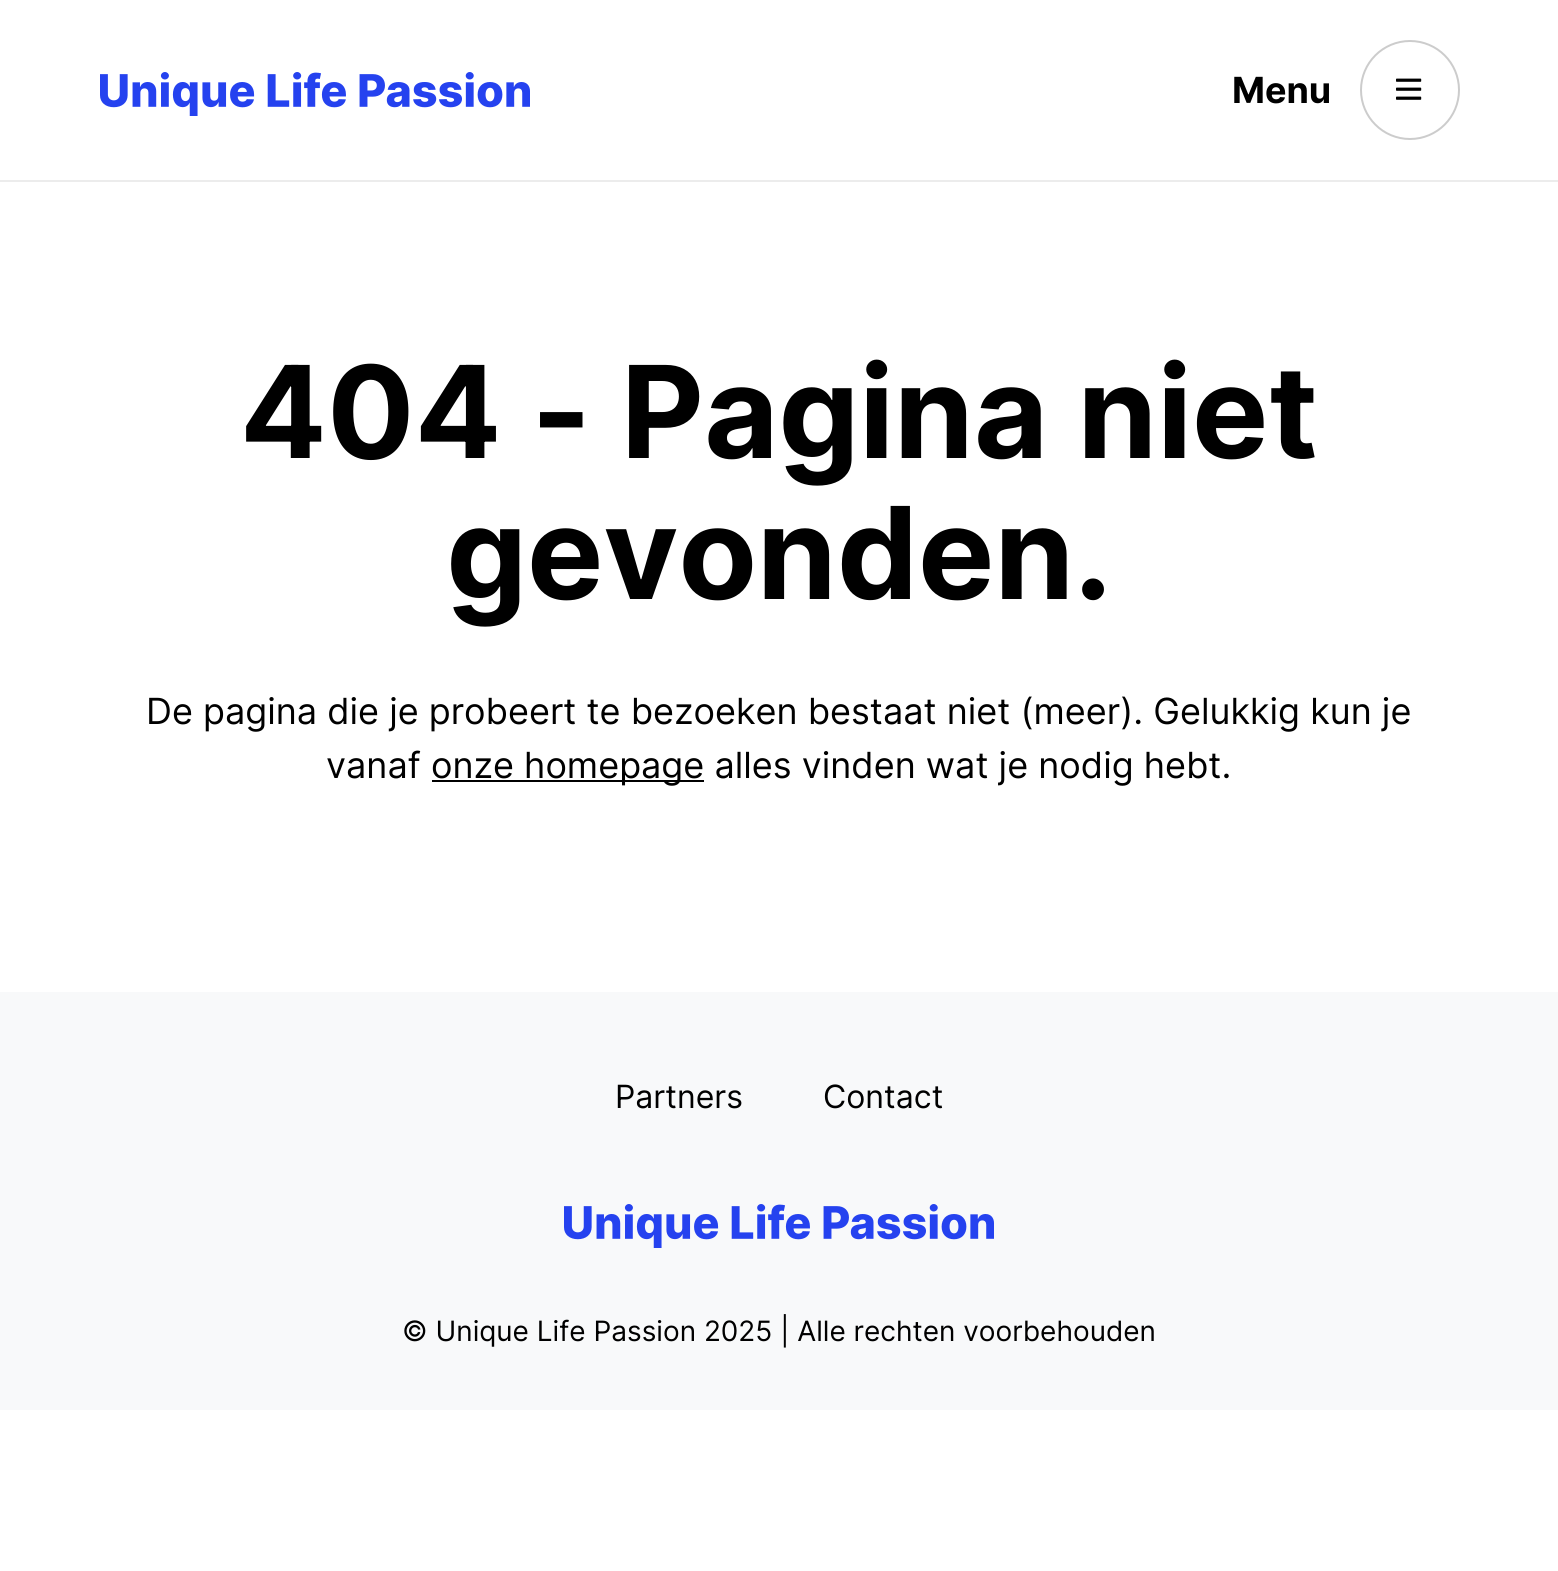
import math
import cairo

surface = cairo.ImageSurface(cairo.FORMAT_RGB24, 1558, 1571)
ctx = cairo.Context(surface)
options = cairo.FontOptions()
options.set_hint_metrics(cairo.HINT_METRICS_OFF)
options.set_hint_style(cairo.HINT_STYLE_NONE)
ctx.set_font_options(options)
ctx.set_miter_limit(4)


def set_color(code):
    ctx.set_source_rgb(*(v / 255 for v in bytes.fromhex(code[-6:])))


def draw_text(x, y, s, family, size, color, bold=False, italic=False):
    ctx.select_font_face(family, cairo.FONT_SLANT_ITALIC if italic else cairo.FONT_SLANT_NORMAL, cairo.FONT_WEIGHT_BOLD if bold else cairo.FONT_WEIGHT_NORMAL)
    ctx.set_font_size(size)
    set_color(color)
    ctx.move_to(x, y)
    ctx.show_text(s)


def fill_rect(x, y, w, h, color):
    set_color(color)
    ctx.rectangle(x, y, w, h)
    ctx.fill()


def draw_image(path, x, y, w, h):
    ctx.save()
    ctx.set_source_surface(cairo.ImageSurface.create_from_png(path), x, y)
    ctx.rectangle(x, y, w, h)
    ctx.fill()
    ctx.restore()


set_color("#ffffff")
ctx.paint()
fill_rect(0, 180, 1558, 2, "#ececec")
draw_image("assets/img1.png", 100, 72, 430, 44)
draw_text(1232, 103, "Menu", "Inter", 36, "#000000", bold=True)
ctx.new_path()
ctx.arc(1410, 90, 49, 0, 2 * math.pi)
set_color("#cccccc")
ctx.stroke()
draw_image("assets/img2.png", 1396, 78, 26, 22)
draw_text(240, 458, "404 - Pagina niet", "Inter", 128, "#000000", bold=True)
draw_text(446, 599, "gevonden.", "Inter", 128, "#000000", bold=True)
draw_text(146, 724, "De pagina die je probeert te bezoeken bestaat niet (meer). Gelukkig kun je", "Inter", 36, "#000000")
draw_text(326, 778, "vanaf", "Inter", 36, "#000000")
fill_rect(432, 780, 272, 2, "#000000")
draw_text(431, 778, "onze homepage alles vinden wat je nodig hebt.", "Inter", 36, "#000000")
fill_rect(0, 992, 1558, 418, "#f8f9fa")
draw_text(615, 1108, "Partners", "Inter", 32, "#000000")
draw_text(823, 1108, "Contact", "Inter", 32, "#000000")
draw_image("assets/img3.png", 564, 1204, 430, 44)
draw_text(402, 1341, "© Unique Life Passion 2025 | Alle rechten voorbehouden", "Inter", 28, "#000000")
surface.write_to_png("output.png")
